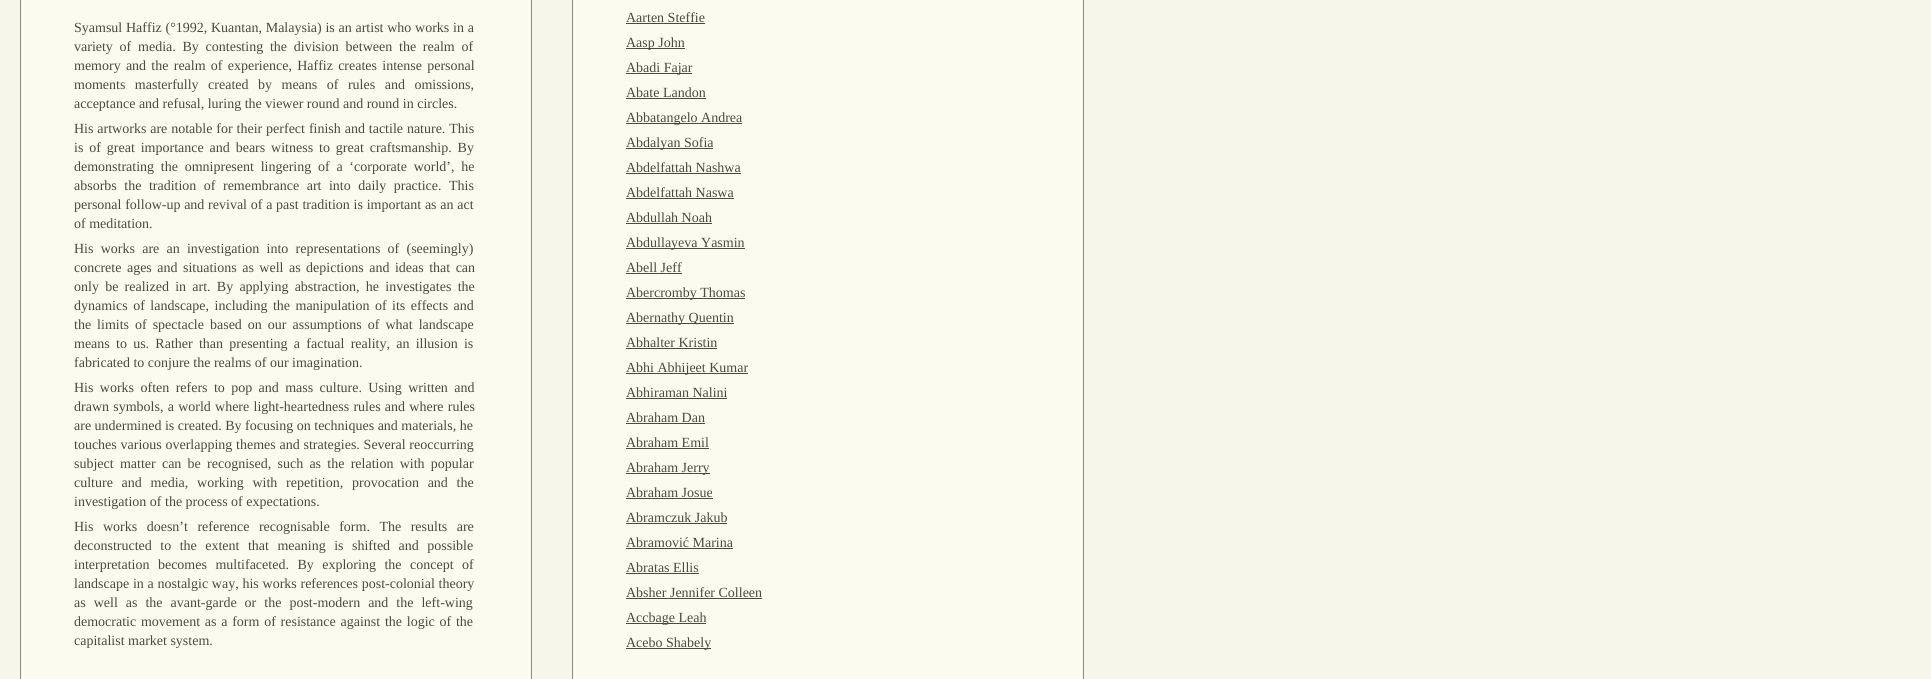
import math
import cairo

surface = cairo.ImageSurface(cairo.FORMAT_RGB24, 1931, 679)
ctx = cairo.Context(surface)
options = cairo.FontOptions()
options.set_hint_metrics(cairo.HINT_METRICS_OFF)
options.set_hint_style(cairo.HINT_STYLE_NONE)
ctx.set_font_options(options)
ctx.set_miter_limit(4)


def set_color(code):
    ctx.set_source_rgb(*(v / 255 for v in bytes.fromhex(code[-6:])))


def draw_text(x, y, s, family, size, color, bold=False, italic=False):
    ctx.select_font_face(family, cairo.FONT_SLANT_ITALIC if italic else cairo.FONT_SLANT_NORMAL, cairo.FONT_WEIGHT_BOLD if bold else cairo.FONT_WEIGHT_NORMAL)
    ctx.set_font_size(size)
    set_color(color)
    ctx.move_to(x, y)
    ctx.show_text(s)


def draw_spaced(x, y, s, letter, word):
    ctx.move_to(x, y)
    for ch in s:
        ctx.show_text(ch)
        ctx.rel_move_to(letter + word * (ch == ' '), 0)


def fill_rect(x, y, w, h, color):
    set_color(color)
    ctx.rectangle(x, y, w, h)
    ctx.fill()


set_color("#f6f6ea")
ctx.paint()
set_color("#fbfbef")
ctx.rectangle(20.5, -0.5, 511, 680)
ctx.fill_preserve()
set_color("#8a8a80")
ctx.set_line_width(1)
ctx.stroke()
ctx.select_font_face("Liberation Serif")
ctx.set_font_size(14)
set_color("#4a4a40")
draw_spaced(74, 32, "Syamsul Haffiz (°1992, Kuantan, Malaysia) is an artist who works in a", 0, 0.25)
draw_spaced(74, 51, "variety of media. By contesting the division between the realm of", 0, 3.25)
draw_spaced(74, 70, "memory and the realm of experience, Haffiz creates intense personal", 0, 1.75)
draw_spaced(74, 89, "moments masterfully created by means of rules and omissions,", 0, 6)
draw_text(74, 108, "acceptance and refusal, luring the viewer round and round in circles.", "Liberation Serif", 14, "#4a4a40")
draw_spaced(74, 133, "His artworks are notable for their perfect finish and tactile nature. This", 0, 0.4)
draw_spaced(74, 152, "is of great importance and bears witness to great craftsmanship. By", 0, 2.4)
draw_spaced(74, 171, "demonstrating the omnipresent lingering of a ‘corporate world’, he", 0, 3.25)
draw_spaced(74, 190, "absorbs the tradition of remembrance art into daily practice. This", 0, 4)
draw_spaced(74, 209, "personal follow-up and revival of a past tradition is important as an act", 0, 0.25)
draw_text(74, 228, "of meditation.", "Liberation Serif", 14, "#4a4a40")
draw_spaced(74, 253, "His works are an investigation into representations of (seemingly)", 0, 3.75)
draw_spaced(74, 272, "concrete ages and situations as well as depictions and ideas that can", 0, 2)
draw_spaced(74, 291, "only be realized in art. By applying abstraction, he investigates the", 0, 2.75)
draw_spaced(74, 310, "dynamics of landscape, including the manipulation of its effects and", 0, 2)
draw_spaced(74, 329, "the limits of spectacle based on our assumptions of what landscape", 0, 2.5)
draw_spaced(74, 348, "means to us. Rather than presenting a factual reality, an illusion is", 0, 2.75)
draw_text(74, 367, "fabricated to conjure the realms of our imagination.", "Liberation Serif", 14, "#4a4a40")
draw_spaced(74, 392, "His works often refers to pop and mass culture. Using written and", 0, 2.9)
draw_spaced(74, 411, "drawn symbols, a world where light-heartedness rules and where rules", 0, 0.75)
draw_text(74, 430, "are undermined is created. By focusing on techniques and materials, he", "Liberation Serif", 14, "#4a4a40")
draw_spaced(74, 449, "touches various overlapping themes and strategies. Several reoccurring", 0, 0.25)
draw_spaced(74, 468, "subject matter can be recognised, such as the relation with popular", 0, 2.75)
draw_spaced(74, 487, "culture and media, working with repetition, provocation and the", 0, 5.25)
draw_text(74, 506, "investigation of the process of expectations.", "Liberation Serif", 14, "#4a4a40")
draw_spaced(74, 531, "His works doesn’t reference recognisable form. The results are", 0, 6)
draw_spaced(74, 550, "deconstructed to the extent that meaning is shifted and possible", 0, 5)
draw_spaced(74, 569, "interpretation becomes multifaceted. By exploring the concept of", 0, 5)
draw_spaced(74, 588, "landscape in a nostalgic way, his works references post-colonial theory", 0, 0.25)
draw_spaced(74, 607, "as well as the avant-garde or the post-modern and the left-wing", 0, 4.5)
draw_spaced(74, 626, "democratic movement as a form of resistance against the logic of the", 0, 1.25)
draw_text(74, 645, "capitalist market system.", "Liberation Serif", 14, "#4a4a40")
set_color("#fbfbef")
ctx.rectangle(572.5, -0.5, 511, 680)
ctx.fill_preserve()
set_color("#8a8a80")
ctx.stroke()
draw_text(626, 22, "Aarten Steffie", "Liberation Serif", 14, "#4a4a40")
fill_rect(626, 23, 79, 1, "#4a4a40")
fill_rect(626, 48, 59, 1, "#4a4a40")
draw_text(626, 47, "Aasp John", "Liberation Serif", 14, "#4a4a40")
fill_rect(626, 73, 66, 1, "#4a4a40")
draw_text(626, 72, "Abadi Fajar", "Liberation Serif", 14, "#4a4a40")
draw_text(626, 97, "Abate Landon", "Liberation Serif", 14, "#4a4a40")
fill_rect(626, 98, 80, 1, "#4a4a40")
fill_rect(626, 123, 116, 1, "#4a4a40")
draw_text(626, 122, "Abbatangelo Andrea", "Liberation Serif", 14, "#4a4a40")
fill_rect(626, 148, 87, 1, "#4a4a40")
draw_text(626, 147, "Abdalyan Sofia", "Liberation Serif", 14, "#4a4a40")
draw_text(626, 172, "Abdelfattah Nashwa", "Liberation Serif", 14, "#4a4a40")
fill_rect(626, 173, 115, 1, "#4a4a40")
draw_text(626, 197, "Abdelfattah Naswa", "Liberation Serif", 14, "#4a4a40")
fill_rect(626, 198, 108, 1, "#4a4a40")
draw_text(626, 222, "Abdullah Noah", "Liberation Serif", 14, "#4a4a40")
fill_rect(626, 223, 86, 1, "#4a4a40")
fill_rect(626, 248, 119, 1, "#4a4a40")
draw_text(626, 247, "Abdullayeva Yasmin", "Liberation Serif", 14, "#4a4a40")
draw_text(626, 272, "Abell Jeff", "Liberation Serif", 14, "#4a4a40")
fill_rect(626, 273, 56, 1, "#4a4a40")
fill_rect(626, 298, 119, 1, "#4a4a40")
draw_text(626, 297, "Abercromby Thomas", "Liberation Serif", 14, "#4a4a40")
fill_rect(626, 323, 108, 1, "#4a4a40")
draw_text(626, 322, "Abernathy Quentin", "Liberation Serif", 14, "#4a4a40")
draw_text(626, 347, "Abhalter Kristin", "Liberation Serif", 14, "#4a4a40")
fill_rect(626, 348, 91, 1, "#4a4a40")
fill_rect(626, 373, 122, 1, "#4a4a40")
draw_text(626, 372, "Abhi Abhijeet Kumar", "Liberation Serif", 14, "#4a4a40")
draw_text(626, 397, "Abhiraman Nalini", "Liberation Serif", 14, "#4a4a40")
fill_rect(626, 398, 101, 1, "#4a4a40")
draw_text(626, 422, "Abraham Dan", "Liberation Serif", 14, "#4a4a40")
fill_rect(626, 423, 79, 1, "#4a4a40")
draw_text(626, 447, "Abraham Emil", "Liberation Serif", 14, "#4a4a40")
fill_rect(626, 448, 83, 1, "#4a4a40")
fill_rect(626, 473, 84, 1, "#4a4a40")
draw_text(626, 472, "Abraham Jerry", "Liberation Serif", 14, "#4a4a40")
draw_text(626, 497, "Abraham Josue", "Liberation Serif", 14, "#4a4a40")
fill_rect(626, 498, 87, 1, "#4a4a40")
draw_text(626, 522, "Abramczuk Jakub", "Liberation Serif", 14, "#4a4a40")
fill_rect(626, 523, 101, 1, "#4a4a40")
draw_text(626, 547, "Abramović Marina", "Liberation Serif", 14, "#4a4a40")
fill_rect(626, 548, 107, 1, "#4a4a40")
draw_text(626, 572, "Abratas Ellis", "Liberation Serif", 14, "#4a4a40")
fill_rect(626, 573, 73, 1, "#4a4a40")
draw_text(626, 597, "Absher Jennifer Colleen", "Liberation Serif", 14, "#4a4a40")
fill_rect(626, 598, 136, 1, "#4a4a40")
fill_rect(626, 623, 80, 1, "#4a4a40")
draw_text(626, 622, "Accbage Leah", "Liberation Serif", 14, "#4a4a40")
fill_rect(626, 648, 85, 1, "#4a4a40")
draw_text(626, 647, "Acebo Shabely", "Liberation Serif", 14, "#4a4a40")
surface.write_to_png("output.png")
